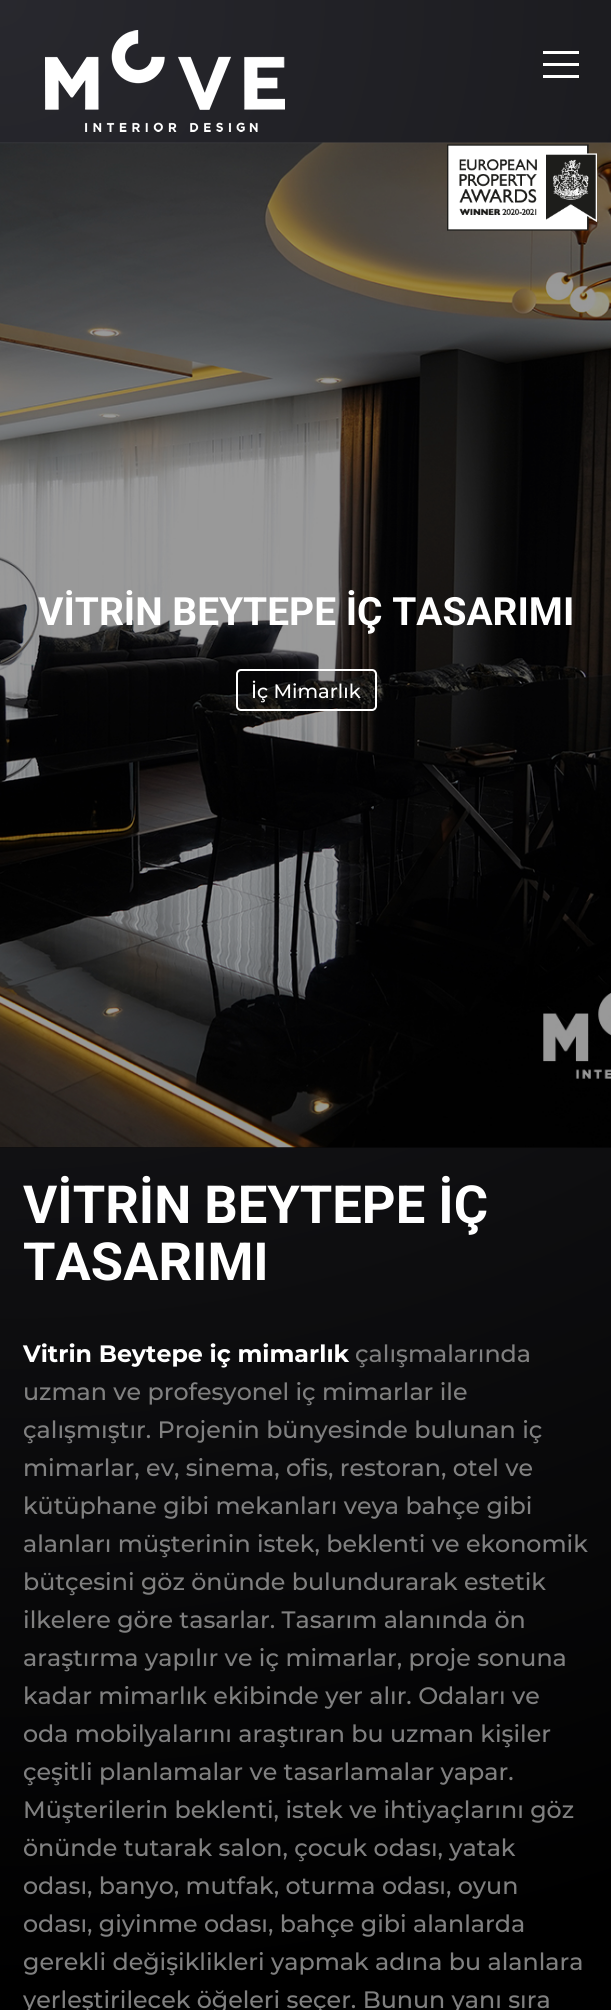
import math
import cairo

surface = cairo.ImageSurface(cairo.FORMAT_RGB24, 611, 2010)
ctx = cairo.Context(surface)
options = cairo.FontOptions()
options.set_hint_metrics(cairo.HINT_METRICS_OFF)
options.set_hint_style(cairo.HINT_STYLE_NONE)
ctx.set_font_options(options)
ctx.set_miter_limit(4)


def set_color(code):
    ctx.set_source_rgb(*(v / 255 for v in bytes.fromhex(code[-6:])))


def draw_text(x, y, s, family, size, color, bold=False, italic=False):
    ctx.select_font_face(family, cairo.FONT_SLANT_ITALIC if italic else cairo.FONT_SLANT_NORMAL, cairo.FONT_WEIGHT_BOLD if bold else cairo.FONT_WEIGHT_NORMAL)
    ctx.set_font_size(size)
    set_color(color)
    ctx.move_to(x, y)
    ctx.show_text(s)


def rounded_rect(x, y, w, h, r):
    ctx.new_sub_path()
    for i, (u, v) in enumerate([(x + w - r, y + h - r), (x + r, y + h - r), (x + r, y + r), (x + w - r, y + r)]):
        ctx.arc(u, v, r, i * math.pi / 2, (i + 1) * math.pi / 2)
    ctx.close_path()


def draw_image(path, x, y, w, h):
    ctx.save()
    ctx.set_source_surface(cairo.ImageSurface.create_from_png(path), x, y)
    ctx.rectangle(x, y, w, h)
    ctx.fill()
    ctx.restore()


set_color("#ffffff")
ctx.paint()
gradient = cairo.RadialGradient(0, 0, 0, 0, 0, 2843)
gradient.add_color_stop_rgba(0, 0.157, 0.157, 0.18, 1)
gradient.add_color_stop_rgba(0.7, 0, 0, 0, 1)
ctx.set_source(gradient)
ctx.rectangle(0, 0, 611, 2010)
ctx.fill()
gradient = cairo.RadialGradient(0, 0, 0, 0, 0, 2843)
gradient.add_color_stop_rgba(0, 0.094, 0.094, 0.11, 1)
gradient.add_color_stop_rgba(0.7, 0, 0, 0, 1)
ctx.set_source(gradient)
ctx.rectangle(0, 1147, 611, 1)
ctx.fill()
draw_image("assets/img1.png", 45, 30, 240, 102)
set_color("#ffffff")
ctx.new_path()
ctx.move_to(543, 51)
ctx.line_to(579, 51)
ctx.line_to(579, 54)
ctx.line_to(543, 54)
ctx.close_path()
ctx.move_to(543, 63)
ctx.line_to(579, 63)
ctx.line_to(579, 66)
ctx.line_to(543, 66)
ctx.close_path()
ctx.move_to(543, 75)
ctx.line_to(579, 75)
ctx.line_to(579, 78)
ctx.line_to(543, 78)
ctx.close_path()
ctx.fill()
draw_image("assets/img3.png", 0, 142, 611, 1006)
draw_image("assets/img2.png", 447, 144, 150, 87)
draw_text(38, 625, "VİTRİN BEYTEPE İÇ TASARIMI", "Roboto", 38.9, "#ffffff", bold=True)
rounded_rect(237, 670, 139, 40, 4)
ctx.stroke()
draw_text(251, 698, "İç Mimarlık", "Montserrat Medium", 19.5, "#ffffff")
draw_text(23, 1223, "VİTRİN BEYTEPE İÇ", "Roboto", 52.5, "#ffffff", bold=True)
draw_text(23, 1280, "TASARIMI", "Roboto", 52.5, "#ffffff", bold=True)
draw_text(23, 1362, "Vitrin Beytepe iç mimarlık", "Montserrat", 23.75, "#ffffff", bold=True)
draw_text(355, 1362, "çalışmalarında", "Montserrat Medium", 23.75, "#808080")
draw_text(23, 1400, "uzman ve profesyonel iç mimarlar ile", "Montserrat Medium", 23.75, "#808080")
draw_text(23, 1438, "çalışmıştır. Projenin bünyesinde bulunan iç", "Montserrat Medium", 23.75, "#808080")
draw_text(23, 1476, "mimarlar, ev, sinema, ofis, restoran, otel ve", "Montserrat Medium", 23.75, "#808080")
draw_text(23, 1514, "kütüphane gibi mekanları veya bahçe gibi", "Montserrat Medium", 23.75, "#808080")
draw_text(23, 1552, "alanları müşterinin istek, beklenti ve ekonomik", "Montserrat Medium", 23.75, "#808080")
draw_text(23, 1590, "bütçesini göz önünde bulundurarak estetik", "Montserrat Medium", 23.75, "#808080")
draw_text(23, 1628, "ilkelere göre tasarlar. Tasarım alanında ön", "Montserrat Medium", 23.75, "#808080")
draw_text(23, 1666, "araştırma yapılır ve iç mimarlar, proje sonuna", "Montserrat Medium", 23.75, "#808080")
draw_text(23, 1704, "kadar mimarlık ekibinde yer alır. Odaları ve", "Montserrat Medium", 23.75, "#808080")
draw_text(23, 1742, "oda mobilyalarını araştıran bu uzman kişiler", "Montserrat Medium", 23.75, "#808080")
draw_text(23, 1780, "çeşitli planlamalar ve tasarlamalar yapar.", "Montserrat Medium", 23.75, "#808080")
draw_text(23, 1818, "Müşterilerin beklenti, istek ve ihtiyaçlarını göz", "Montserrat Medium", 23.75, "#808080")
draw_text(23, 1856, "önünde tutarak salon, çocuk odası, yatak", "Montserrat Medium", 23.75, "#808080")
draw_text(23, 1894, "odası, banyo, mutfak, oturma odası, oyun", "Montserrat Medium", 23.75, "#808080")
draw_text(23, 1932, "odası, giyinme odası, bahçe gibi alanlarda", "Montserrat Medium", 23.75, "#808080")
draw_text(23, 1970, "gerekli değişiklikleri yapmak adına bu alanlara", "Montserrat Medium", 23.75, "#808080")
draw_text(23, 2008, "yerleştirilecek öğeleri seçer. Bunun yanı sıra", "Montserrat Medium", 23.75, "#808080")
surface.write_to_png("output.png")
